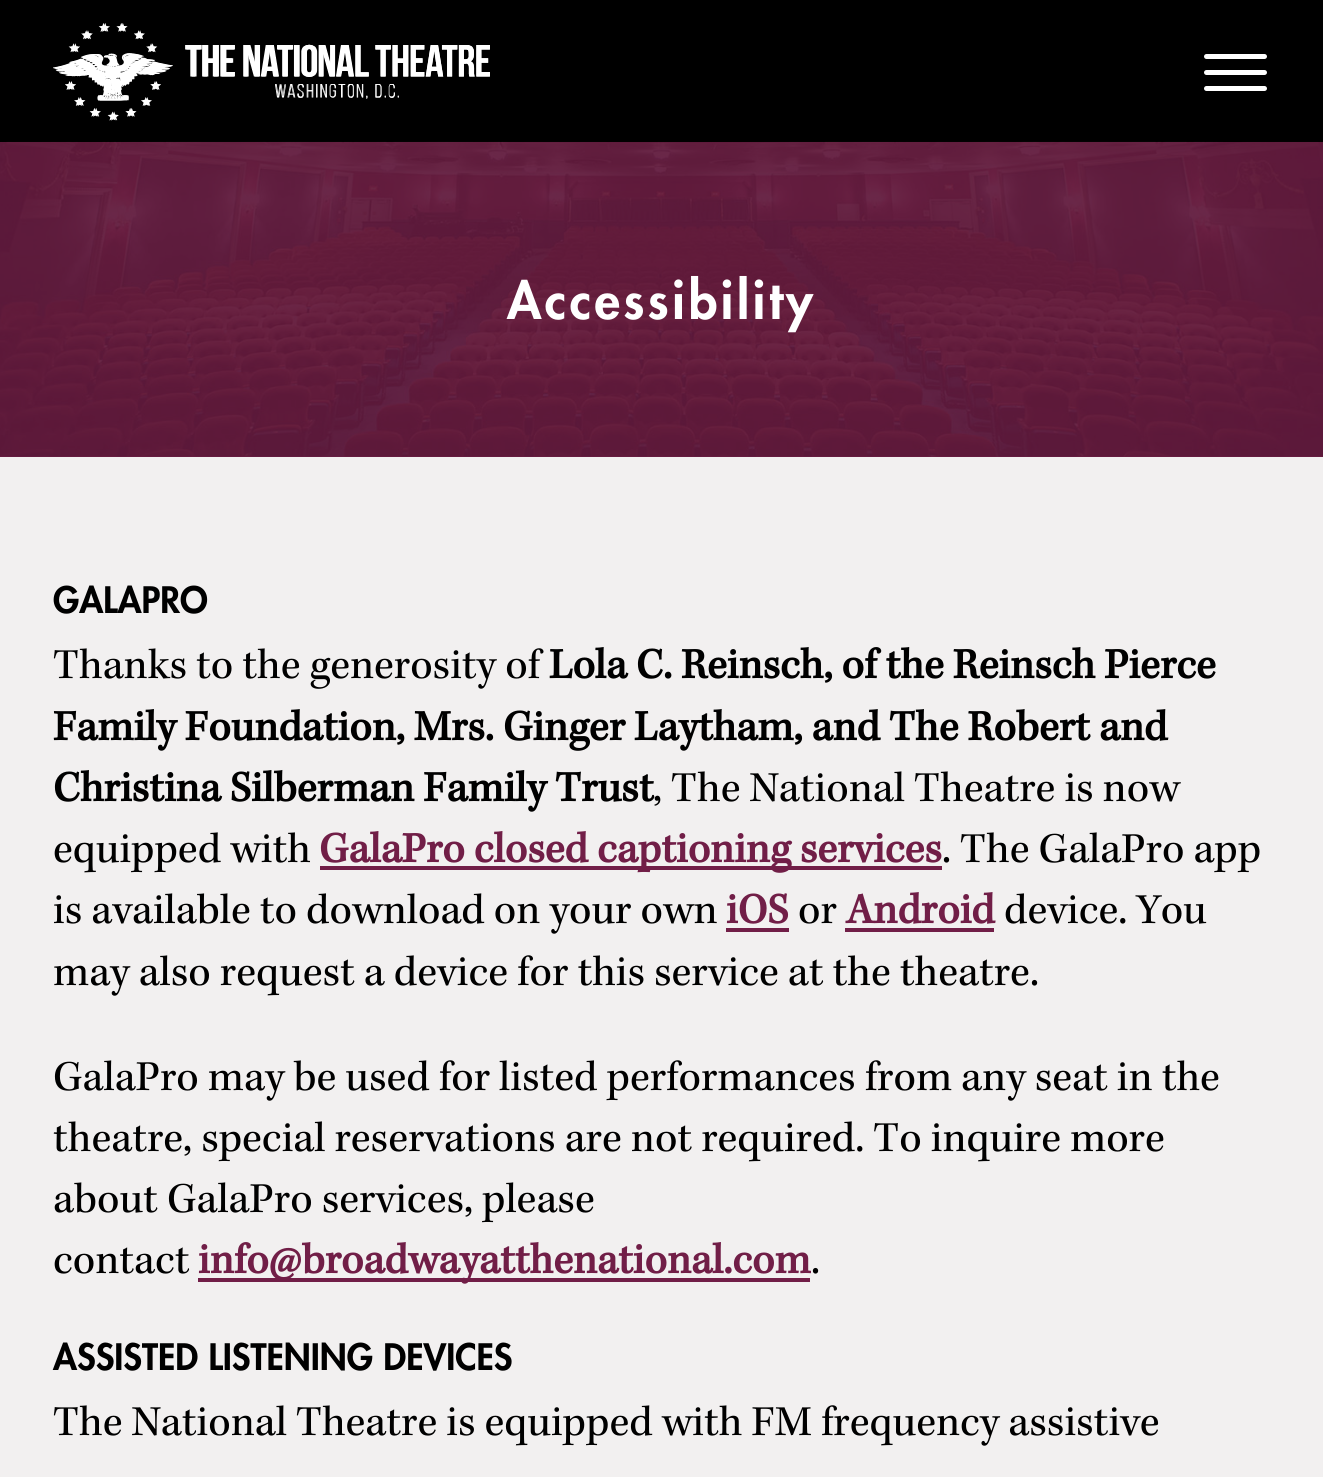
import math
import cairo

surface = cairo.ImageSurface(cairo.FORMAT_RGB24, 1323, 1477)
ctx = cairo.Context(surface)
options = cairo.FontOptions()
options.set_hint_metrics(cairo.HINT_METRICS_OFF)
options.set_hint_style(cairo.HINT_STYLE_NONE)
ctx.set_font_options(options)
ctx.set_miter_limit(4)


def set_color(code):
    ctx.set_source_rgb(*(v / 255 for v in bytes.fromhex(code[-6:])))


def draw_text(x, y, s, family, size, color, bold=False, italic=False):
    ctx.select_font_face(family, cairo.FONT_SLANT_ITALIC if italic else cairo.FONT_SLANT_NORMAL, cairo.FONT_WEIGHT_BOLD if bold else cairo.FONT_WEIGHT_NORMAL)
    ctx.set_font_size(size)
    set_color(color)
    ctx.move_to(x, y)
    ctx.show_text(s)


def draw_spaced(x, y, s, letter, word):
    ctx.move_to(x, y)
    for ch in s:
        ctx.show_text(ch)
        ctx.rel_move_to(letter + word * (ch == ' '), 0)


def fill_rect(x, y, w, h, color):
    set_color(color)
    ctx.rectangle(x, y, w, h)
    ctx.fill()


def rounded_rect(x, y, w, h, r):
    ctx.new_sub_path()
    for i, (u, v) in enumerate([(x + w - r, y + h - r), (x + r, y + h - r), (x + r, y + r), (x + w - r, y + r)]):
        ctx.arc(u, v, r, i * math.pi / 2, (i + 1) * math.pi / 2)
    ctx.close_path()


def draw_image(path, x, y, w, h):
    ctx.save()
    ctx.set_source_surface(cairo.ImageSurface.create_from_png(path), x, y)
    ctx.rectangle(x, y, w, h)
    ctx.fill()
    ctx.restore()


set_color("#000000")
ctx.paint()
draw_image("assets/img1.png", 54, 23, 436, 98)
draw_image("assets/img2.png", 53, 23, 437, 98)
set_color("#ffffff")
rounded_rect(1204, 86, 63, 5, 2.5)
ctx.fill()
rounded_rect(1204, 54, 63, 5, 2.5)
ctx.fill()
rounded_rect(1204, 70, 63, 5, 2.5)
ctx.fill()
fill_rect(0, 456, 1323, 1, "#711e47")
draw_image("assets/img3.png", 0, 141, 1323, 316)
ctx.select_font_face("Futura Black")
ctx.set_font_size(50.75)
set_color("#ffffff")
draw_spaced(507, 319, "Accessibility", 3.5, 0)
fill_rect(0, 457, 1323, 1020, "#f2f0f0")
draw_text(53, 613, "GALAPRO", "Futura Black", 35.5, "#000000")
draw_text(53, 678, "Thanks to the generosity of", "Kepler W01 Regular", 43.75, "#000000")
draw_text(549, 678, "Lola C. Reinsch, of the Reinsch Pierce", "Kepler W01 Regular", 43.75, "#000000", bold=True)
draw_text(53, 740, "Family Foundation, Mrs. Ginger Laytham, and The Robert and", "Kepler W01 Regular", 43.75, "#000000", bold=True)
draw_text(53, 801, "Christina Silberman Family Trust", "Kepler W01 Regular", 43.75, "#000000", bold=True)
draw_text(653, 801, ", The National Theatre is now", "Kepler W01 Regular", 43.75, "#000000")
draw_text(53, 862, "equipped with", "Kepler W01 Regular", 43.75, "#000000")
fill_rect(320, 866, 622, 4, "#711e47")
draw_text(319, 862, "GalaPro closed captioning services", "Kepler W01 Regular", 43.75, "#711e47", bold=True)
draw_text(942, 862, ". The GalaPro app", "Kepler W01 Regular", 43.75, "#000000")
draw_text(53, 923, "is available to download on your own", "Kepler W01 Regular", 43.75, "#000000")
draw_text(726, 923, "iOS", "Kepler W01 Regular", 43.75, "#711e47", bold=True)
fill_rect(726, 928, 63, 4, "#711e47")
draw_text(798, 923, "or", "Kepler W01 Regular", 43.75, "#000000")
draw_text(846, 923, "Android", "Kepler W01 Regular", 43.75, "#711e47", bold=True)
fill_rect(845, 928, 149, 4, "#711e47")
draw_text(1004, 923, "device. You", "Kepler W01 Regular", 43.75, "#000000")
draw_text(53, 985, "may also request a device for this service at the theatre.", "Kepler W01 Regular", 43.75, "#000000")
draw_text(53, 1090, "GalaPro may be used for listed performances from any seat in the", "Kepler W01 Regular", 43.75, "#000000")
draw_text(53, 1151, "theatre, special reservations are not required. To inquire more", "Kepler W01 Regular", 43.75, "#000000")
draw_text(53, 1212, "about GalaPro services, please", "Kepler W01 Regular", 43.75, "#000000")
draw_text(53, 1273, "contact", "Kepler W01 Regular", 43.75, "#000000")
fill_rect(198, 1278, 612, 4, "#711e47")
draw_text(198, 1273, "info@broadwayatthenational.com", "Kepler W01 Regular", 43.75, "#711e47", bold=True)
draw_text(811, 1273, ".", "Kepler W01 Regular", 43.75, "#000000")
draw_text(53, 1370, "ASSISTED LISTENING DEVICES", "Futura Black", 35.5, "#000000")
draw_text(53, 1435, "The National Theatre is equipped with FM frequency assistive", "Kepler W01 Regular", 43.75, "#000000")
surface.write_to_png("output.png")
